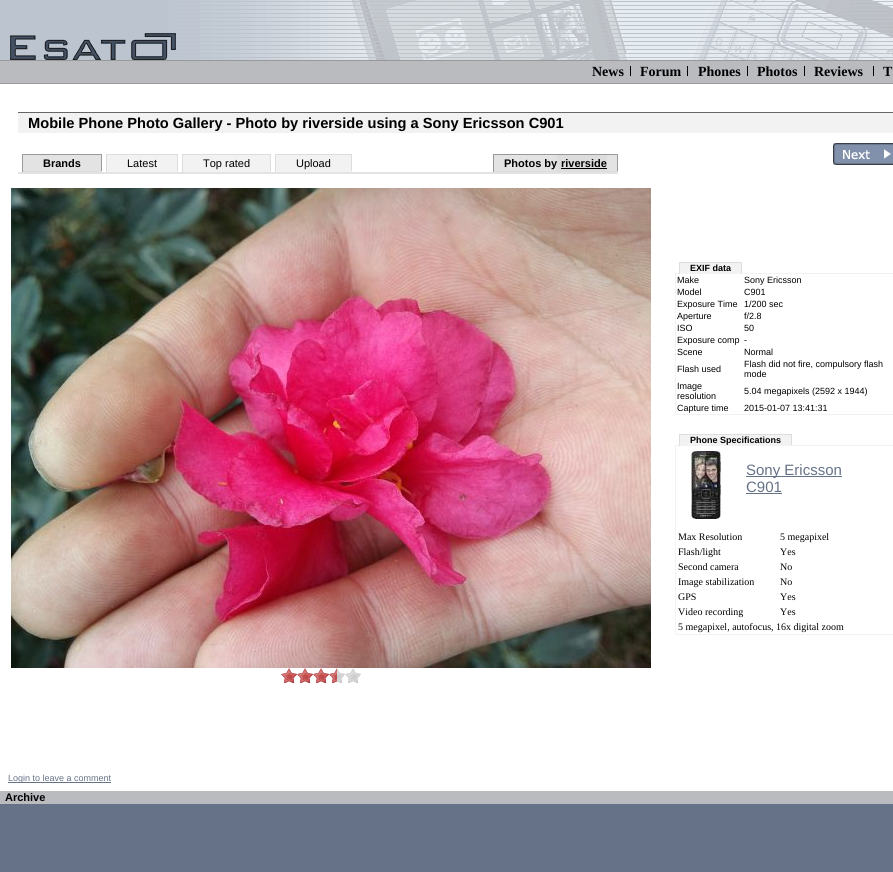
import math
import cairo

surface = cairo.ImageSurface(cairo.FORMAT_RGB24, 893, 872)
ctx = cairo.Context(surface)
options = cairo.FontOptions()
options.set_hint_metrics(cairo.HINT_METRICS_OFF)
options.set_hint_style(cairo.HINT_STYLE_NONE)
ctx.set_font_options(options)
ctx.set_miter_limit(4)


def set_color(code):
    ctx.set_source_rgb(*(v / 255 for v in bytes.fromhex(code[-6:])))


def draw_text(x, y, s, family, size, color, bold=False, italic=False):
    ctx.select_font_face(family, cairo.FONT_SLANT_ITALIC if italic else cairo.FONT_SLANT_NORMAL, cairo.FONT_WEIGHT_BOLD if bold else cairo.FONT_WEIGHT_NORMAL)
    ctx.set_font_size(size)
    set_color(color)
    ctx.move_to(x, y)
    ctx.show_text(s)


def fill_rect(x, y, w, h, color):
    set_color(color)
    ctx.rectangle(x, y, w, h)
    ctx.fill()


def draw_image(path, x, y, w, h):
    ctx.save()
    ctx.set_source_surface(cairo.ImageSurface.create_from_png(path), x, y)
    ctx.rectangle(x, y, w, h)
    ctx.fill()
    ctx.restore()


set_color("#667287")
ctx.paint()
draw_image("assets/img1.png", 0, 0, 893, 60)
fill_rect(0, 61, 893, 22, "#b9bbbf")
fill_rect(0, 60, 893, 1, "#999999")
fill_rect(0, 83, 893, 1, "#999999")
draw_text(592, 76, "News", "Liberation Serif", 14, "#000000", bold=True)
fill_rect(630, 66, 1, 10, "#000000")
draw_text(640, 76, "Forum", "Liberation Serif", 14, "#000000", bold=True)
fill_rect(687, 66, 1, 10, "#000000")
draw_text(698, 76, "Phones", "Liberation Serif", 14, "#000000", bold=True)
fill_rect(747, 66, 1, 10, "#000000")
draw_text(757, 76, "Photos", "Liberation Serif", 14, "#000000", bold=True)
fill_rect(804, 66, 1, 10, "#000000")
draw_text(814, 76, "Reviews", "Liberation Serif", 14, "#000000", bold=True)
fill_rect(873, 66, 1, 10, "#000000")
draw_text(883, 76, "T", "Liberation Serif", 14, "#000000", bold=True)
fill_rect(0, 84, 893, 707, "#ffffff")
fill_rect(18, 113, 875, 20, "#f2f2f2")
fill_rect(18, 112, 875, 1, "#666666")
draw_text(28, 128, "Mobile Phone Photo Gallery - Photo by riverside using a Sony Ericsson C901", "Liberation Sans", 14.65, "#000000", bold=True)
fill_rect(18, 172, 600, 2, "#e3e3e3")
fill_rect(23, 155, 78, 16, "#e3e3e3")
fill_rect(22, 154, 80, 1, "#999999")
fill_rect(101, 154, 1, 18, "#999999")
fill_rect(22, 171, 80, 1, "#dddddd")
fill_rect(22, 154, 1, 18, "#999999")
draw_text(43, 167, "Brands", "Liberation Sans", 11, "#000000", bold=True)
fill_rect(107, 155, 70, 16, "#f2f2f2")
fill_rect(106, 154, 72, 1, "#dddddd")
fill_rect(177, 154, 1, 18, "#dddddd")
fill_rect(106, 171, 72, 1, "#f2f2f2")
fill_rect(106, 154, 1, 18, "#dddddd")
draw_text(127, 167, "Latest", "Liberation Sans", 11, "#000000")
fill_rect(183, 155, 87, 16, "#f2f2f2")
fill_rect(182, 154, 89, 1, "#dddddd")
fill_rect(270, 154, 1, 18, "#dddddd")
fill_rect(182, 171, 89, 1, "#f2f2f2")
fill_rect(182, 154, 1, 18, "#dddddd")
draw_text(203, 167, "Top rated", "Liberation Sans", 11, "#000000")
fill_rect(276, 155, 75, 16, "#f2f2f2")
fill_rect(275, 154, 77, 1, "#dddddd")
fill_rect(351, 154, 1, 18, "#dddddd")
fill_rect(275, 171, 77, 1, "#f2f2f2")
fill_rect(275, 154, 1, 18, "#dddddd")
draw_text(296, 167, "Upload", "Liberation Sans", 11, "#000000")
fill_rect(494, 155, 123, 16, "#e3e3e3")
fill_rect(493, 154, 125, 1, "#999999")
fill_rect(617, 154, 1, 18, "#999999")
fill_rect(493, 171, 125, 1, "#dddddd")
fill_rect(493, 154, 1, 18, "#999999")
fill_rect(557, 155, 50, 16, "#dddddd")
draw_text(504, 167, "Photos by", "Liberation Sans", 11, "#000000", bold=True)
draw_text(561, 167, "riverside", "Liberation Sans", 11, "#000000", bold=True)
fill_rect(561, 168, 46, 1, "#000000")
draw_image("assets/img2.png", 833, 143, 60, 22)
draw_image("assets/img3.png", 11, 188, 640, 480)
draw_image("assets/img4.png", 281, 668, 8, 15)
draw_image("assets/img5.png", 289, 668, 8, 15)
draw_image("assets/img4.png", 297, 668, 8, 15)
draw_image("assets/img5.png", 305, 668, 8, 15)
draw_image("assets/img4.png", 313, 668, 8, 15)
draw_image("assets/img5.png", 321, 668, 8, 15)
draw_image("assets/img4.png", 329, 668, 8, 15)
draw_image("assets/img6.png", 337, 668, 8, 15)
draw_image("assets/img7.png", 345, 668, 8, 15)
draw_image("assets/img6.png", 353, 668, 8, 15)
fill_rect(680, 263, 61, 10, "#f2f2f2")
draw_text(690, 271, "EXIF data", "Liberation Sans", 9, "#000000", bold=True)
fill_rect(679, 262, 63, 1, "#dddddd")
ctx.rectangle(675.5, 273.5, 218, 141)
set_color("#f2f2f2")
ctx.set_line_width(1)
ctx.stroke()
fill_rect(741, 262, 1, 12, "#dddddd")
fill_rect(741, 273, 1, 1, "#f2f2f2")
fill_rect(679, 262, 1, 12, "#dddddd")
draw_text(677, 283, "Make", "Liberation Sans", 9, "#000000")
draw_text(744, 283, "Sony Ericsson", "Liberation Sans", 9, "#000000")
draw_text(677, 295, "Model", "Liberation Sans", 9, "#000000")
draw_text(744, 295, "C901", "Liberation Sans", 9, "#000000")
draw_text(677, 307, "Exposure Time", "Liberation Sans", 9, "#000000")
draw_text(744, 307, "1/200 sec", "Liberation Sans", 9, "#000000")
draw_text(677, 319, "Aperture", "Liberation Sans", 9, "#000000")
draw_text(744, 319, "f/2.8", "Liberation Sans", 9, "#000000")
draw_text(677, 331, "ISO", "Liberation Sans", 9, "#000000")
draw_text(744, 331, "50", "Liberation Sans", 9, "#000000")
draw_text(677, 343, "Exposure comp", "Liberation Sans", 9, "#000000")
draw_text(744, 343, "-", "Liberation Sans", 9, "#000000")
draw_text(677, 355, "Scene", "Liberation Sans", 9, "#000000")
draw_text(744, 355, "Normal", "Liberation Sans", 9, "#000000")
draw_text(677, 372, "Flash used", "Liberation Sans", 9, "#000000")
draw_text(744, 367, "Flash did not fire, compulsory flash", "Liberation Sans", 9, "#000000")
draw_text(744, 377, "mode", "Liberation Sans", 9, "#000000")
draw_text(677, 389, "Image", "Liberation Sans", 9, "#000000")
draw_text(677, 399, "resolution", "Liberation Sans", 9, "#000000")
draw_text(744, 394, "5.04 megapixels (2592 x 1944)", "Liberation Sans", 9, "#000000")
draw_text(677, 411, "Capture time", "Liberation Sans", 9, "#000000")
draw_text(744, 411, "2015-01-07 13:41:31", "Liberation Sans", 9, "#000000")
fill_rect(680, 435, 111, 10, "#f2f2f2")
draw_text(690, 443, "Phone Specifications", "Liberation Sans", 9, "#000000", bold=True)
fill_rect(679, 434, 113, 1, "#dddddd")
ctx.rectangle(675.5, 445.5, 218, 189)
set_color("#f2f2f2")
ctx.stroke()
fill_rect(791, 434, 1, 12, "#dddddd")
fill_rect(791, 445, 1, 1, "#f2f2f2")
fill_rect(679, 434, 1, 12, "#dddddd")
draw_image("assets/img8.png", 691, 451, 30, 68)
fill_rect(746, 476, 96, 1, "#667287")
draw_text(746, 475, "Sony Ericsson", "Liberation Sans", 15, "#667287")
draw_text(746, 492, "C901", "Liberation Sans", 15, "#667287")
fill_rect(746, 493, 36, 1, "#667287")
draw_text(678, 540, "Max Resolution", "Liberation Serif", 10, "#000000")
draw_text(780, 540, "5 megapixel", "Liberation Serif", 10, "#000000")
draw_text(678, 555, "Flash/light", "Liberation Serif", 10, "#000000")
draw_text(780, 555, "Yes", "Liberation Serif", 10, "#000000")
draw_text(678, 570, "Second camera", "Liberation Serif", 10, "#000000")
draw_text(780, 570, "No", "Liberation Serif", 10, "#000000")
draw_text(678, 585, "Image stabilization", "Liberation Serif", 10, "#000000")
draw_text(780, 585, "No", "Liberation Serif", 10, "#000000")
draw_text(678, 600, "GPS", "Liberation Serif", 10, "#000000")
draw_text(780, 600, "Yes", "Liberation Serif", 10, "#000000")
draw_text(678, 615, "Video recording", "Liberation Serif", 10, "#000000")
draw_text(780, 615, "Yes", "Liberation Serif", 10, "#000000")
draw_text(678, 630, "5 megapixel, autofocus, 16x digital zoom", "Liberation Serif", 10, "#000000")
fill_rect(8, 782, 103, 1, "#667287")
draw_text(8, 781, "Login to leave a comment", "Liberation Sans", 9, "#667287")
fill_rect(0, 791, 893, 13, "#b9bbbf")
draw_text(5, 801, "Archive", "Liberation Sans", 11, "#000000", bold=True)
surface.write_to_png("output.png")
